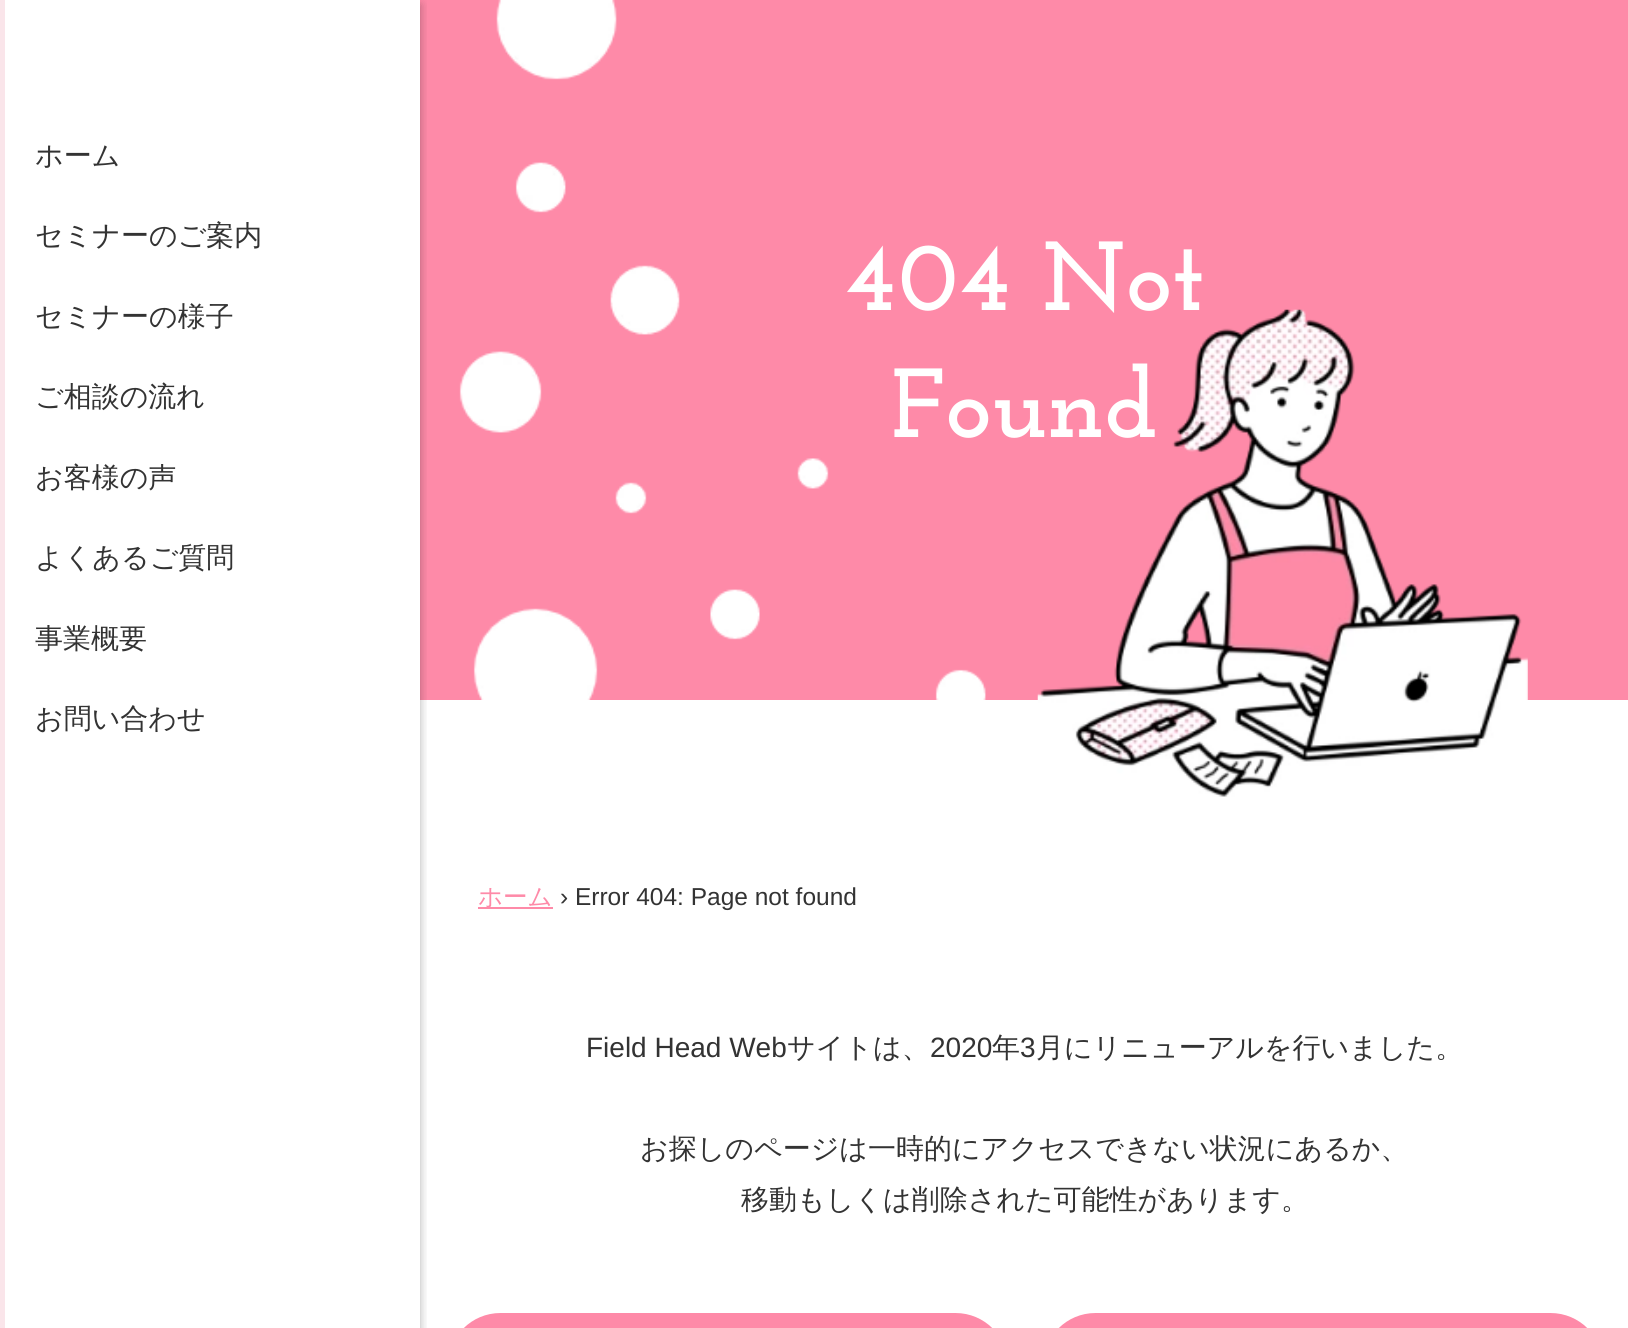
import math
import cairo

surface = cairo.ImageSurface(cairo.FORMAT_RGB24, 1628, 1328)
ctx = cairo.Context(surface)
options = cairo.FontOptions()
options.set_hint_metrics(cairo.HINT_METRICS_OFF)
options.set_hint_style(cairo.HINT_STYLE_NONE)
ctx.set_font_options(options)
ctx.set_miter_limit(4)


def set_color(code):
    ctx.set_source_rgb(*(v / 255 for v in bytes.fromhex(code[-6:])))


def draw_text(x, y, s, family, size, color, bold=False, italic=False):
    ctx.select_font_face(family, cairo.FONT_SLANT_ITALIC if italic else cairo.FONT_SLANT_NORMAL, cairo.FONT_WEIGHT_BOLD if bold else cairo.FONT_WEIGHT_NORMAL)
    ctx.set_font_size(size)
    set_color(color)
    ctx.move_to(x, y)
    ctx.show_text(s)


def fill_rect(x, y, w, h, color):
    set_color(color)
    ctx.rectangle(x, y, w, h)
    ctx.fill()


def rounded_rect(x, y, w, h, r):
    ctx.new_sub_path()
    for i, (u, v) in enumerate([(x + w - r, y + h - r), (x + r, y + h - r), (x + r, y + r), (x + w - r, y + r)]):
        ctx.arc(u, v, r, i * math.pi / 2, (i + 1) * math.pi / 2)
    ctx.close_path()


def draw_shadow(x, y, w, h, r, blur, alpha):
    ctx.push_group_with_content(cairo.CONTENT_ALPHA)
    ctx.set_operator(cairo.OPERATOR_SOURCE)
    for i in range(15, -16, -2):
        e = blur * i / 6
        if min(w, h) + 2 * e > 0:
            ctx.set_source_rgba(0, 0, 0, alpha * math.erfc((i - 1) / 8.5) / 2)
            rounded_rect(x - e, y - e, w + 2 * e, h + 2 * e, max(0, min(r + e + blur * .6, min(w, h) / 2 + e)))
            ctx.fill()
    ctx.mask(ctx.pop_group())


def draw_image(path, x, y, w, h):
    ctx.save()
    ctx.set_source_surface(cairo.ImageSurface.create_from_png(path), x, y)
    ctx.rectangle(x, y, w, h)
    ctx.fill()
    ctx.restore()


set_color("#ffffff")
ctx.paint()
fill_rect(420, 0, 1208, 700, "#fe8aa8")
ctx.save()
ctx.rectangle(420, 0, 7, 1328)
ctx.clip()
set_color("#000000")
draw_shadow(0, 5, 420, 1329, 0, 5, 0.3)
ctx.restore()
fill_rect(0, 0, 5, 1328, "#fae5ea")
draw_text(35, 165, "ホーム", "WenQuanYi Zen Hei Medium", 28, "#333333")
draw_text(35, 245, "セミナーのご案内", "WenQuanYi Zen Hei Medium", 28, "#333333")
draw_text(35, 326, "セミナーの様子", "WenQuanYi Zen Hei Medium", 28, "#333333")
draw_text(35, 406, "ご相談の流れ", "WenQuanYi Zen Hei Medium", 28, "#333333")
draw_text(35, 487, "お客様の声", "WenQuanYi Zen Hei Medium", 28, "#333333")
draw_text(35, 567, "よくあるご質問", "WenQuanYi Zen Hei Medium", 28, "#333333")
draw_text(35, 648, "事業概要", "WenQuanYi Zen Hei Medium", 28, "#333333")
draw_text(35, 728, "お問い合わせ", "WenQuanYi Zen Hei Medium", 28, "#333333")
draw_image("assets/img1.png", 459, 0, 527, 700)
draw_text(844, 310, "404 Not", "Josefin Slab Thin", 98, "#ffffff")
draw_text(891, 437, "Found", "Josefin Slab Thin", 98, "#ffffff")
draw_image("assets/img2.png", 1037, 309, 491, 488)
fill_rect(478, 907, 75, 2, "#fe8aa8")
draw_text(478, 905, "ホーム", "WenQuanYi Zen Hei Medium", 24.5, "#fe8aa8")
draw_text(560, 905, "› Error 404: Page not found", "Liberation Sans", 24.5, "#333333")
draw_text(586, 1057, "Field Head Web", "Liberation Sans", 28, "#333333")
draw_text(787, 1057, "サイトは、", "WenQuanYi Zen Hei Medium", 28, "#333333")
draw_text(930, 1057, "2020", "Liberation Sans", 28, "#333333")
draw_text(992, 1057, "年", "WenQuanYi Zen Hei Medium", 28, "#333333")
draw_text(1020, 1057, "3", "Liberation Sans", 28, "#333333")
draw_text(1036, 1057, "月にリニューアルを行いました。", "WenQuanYi Zen Hei Medium", 28, "#333333")
draw_text(640, 1158, "お探しのページは一時的にアクセスできない状況にあるか、", "WenQuanYi Zen Hei Medium", 28, "#333333")
draw_text(741, 1209, "移動もしくは削除された可能性があります。", "WenQuanYi Zen Hei Medium", 28, "#333333")
set_color("#fe8aa8")
rounded_rect(448, 1313, 560, 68, 52.5)
ctx.fill()
rounded_rect(1043, 1313, 560, 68, 52.5)
ctx.fill()
surface.write_to_png("output.png")
